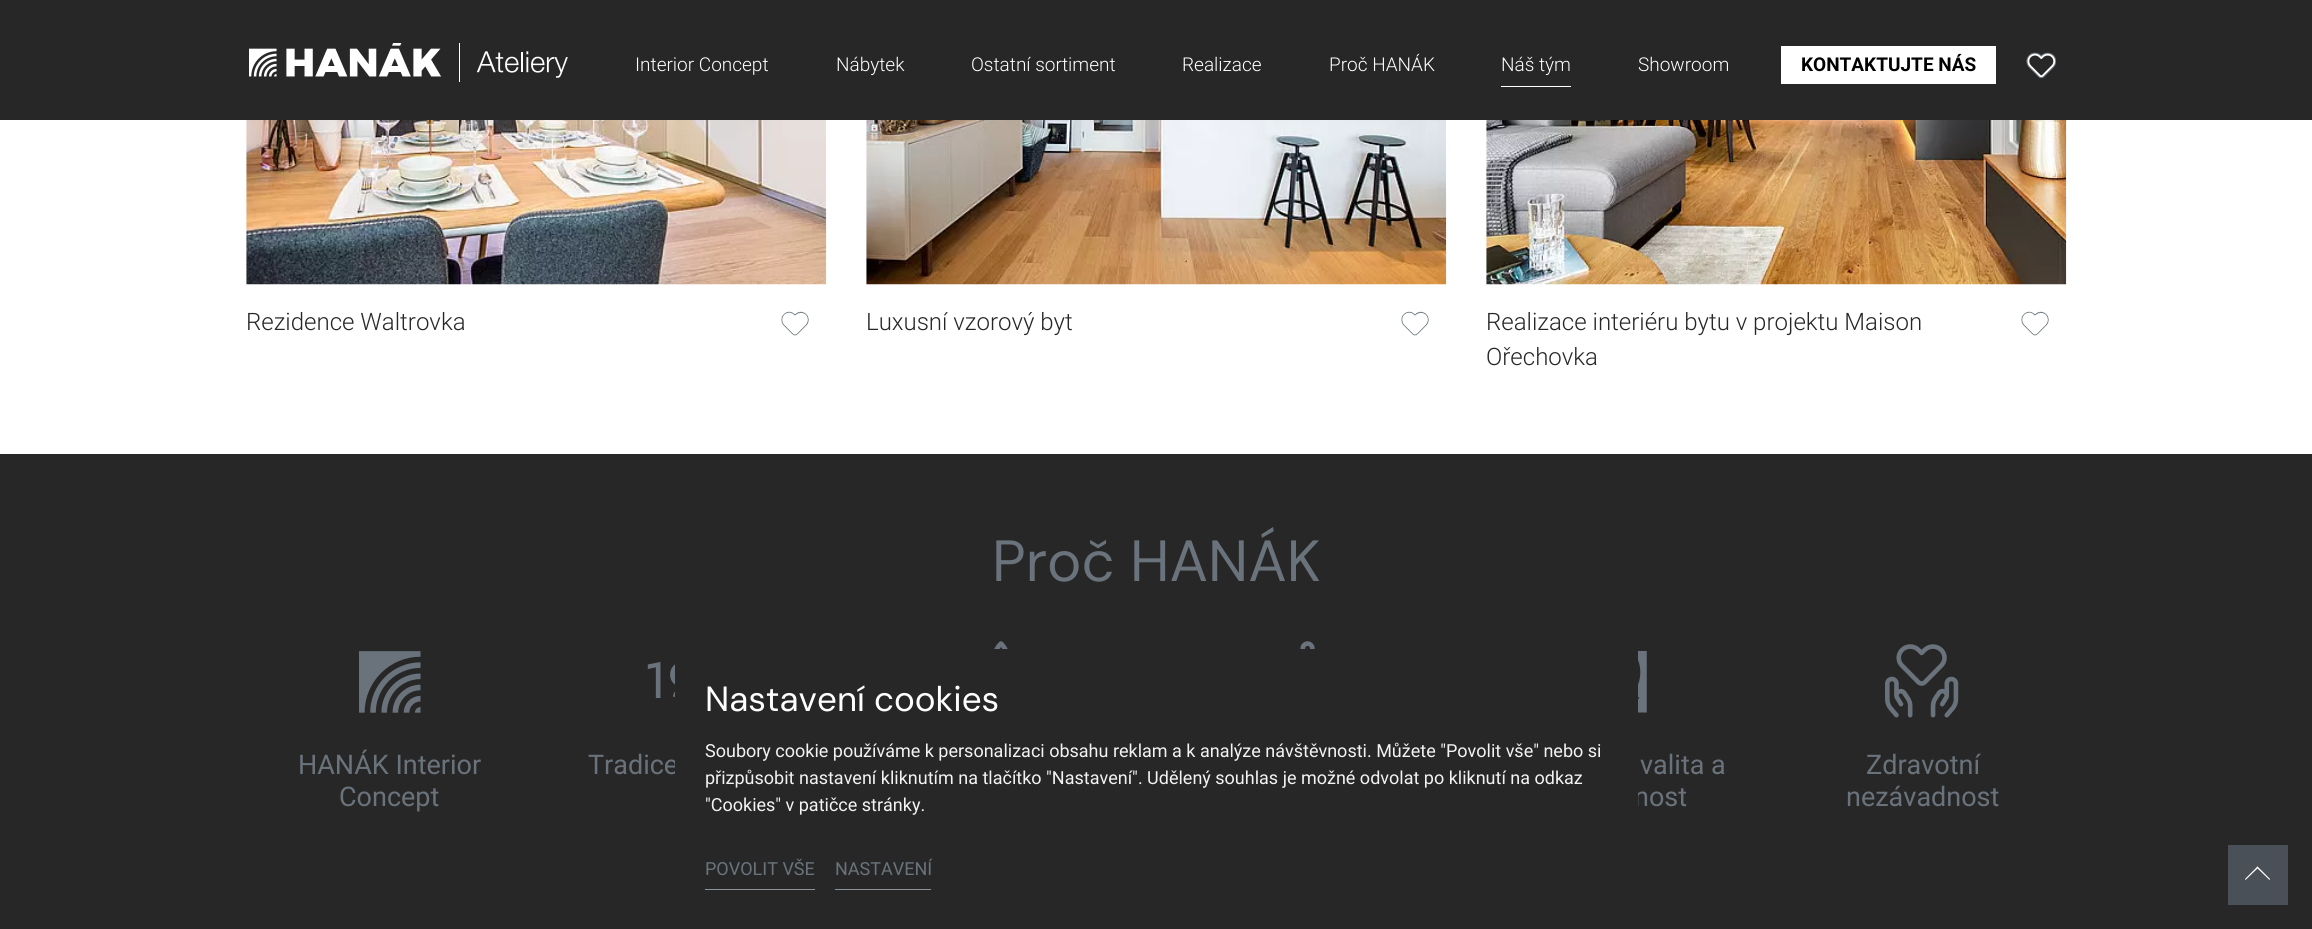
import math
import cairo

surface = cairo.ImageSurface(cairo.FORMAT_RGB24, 2312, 929)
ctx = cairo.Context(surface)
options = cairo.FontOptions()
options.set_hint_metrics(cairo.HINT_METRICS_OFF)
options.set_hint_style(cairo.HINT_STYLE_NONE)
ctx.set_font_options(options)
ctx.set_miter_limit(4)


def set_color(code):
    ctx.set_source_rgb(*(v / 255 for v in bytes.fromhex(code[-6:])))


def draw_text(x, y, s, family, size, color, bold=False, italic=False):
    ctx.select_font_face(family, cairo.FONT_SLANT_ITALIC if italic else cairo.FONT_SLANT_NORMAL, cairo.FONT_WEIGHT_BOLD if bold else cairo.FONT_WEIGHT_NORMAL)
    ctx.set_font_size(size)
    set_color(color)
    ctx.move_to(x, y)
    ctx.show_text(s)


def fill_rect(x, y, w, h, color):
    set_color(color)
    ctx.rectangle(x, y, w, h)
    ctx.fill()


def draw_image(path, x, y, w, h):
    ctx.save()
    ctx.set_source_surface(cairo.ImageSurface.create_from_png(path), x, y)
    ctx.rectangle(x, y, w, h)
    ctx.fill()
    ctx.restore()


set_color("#ffffff")
ctx.paint()
fill_rect(0, 0, 2312, 120, "#272727")
draw_image("assets/img1.png", 249, 43, 319, 39)
draw_text(635, 71, "Interior Concept", "Roboto Light", 19, "#ffffff")
draw_text(836, 71, "Nábytek", "Roboto Light", 19, "#ffffff")
draw_text(971, 71, "Ostatní sortiment", "Roboto Light", 19, "#ffffff")
draw_text(1182, 71, "Realizace", "Roboto Light", 19, "#ffffff")
draw_text(1329, 71, "Proč HANÁK", "Roboto Light", 19, "#ffffff")
draw_text(1501, 71, "Náš tým", "Roboto Light", 19, "#ffffff")
fill_rect(1501, 86, 70, 1, "#ffffff")
draw_text(1638, 71, "Showroom", "Roboto Light", 19, "#ffffff")
fill_rect(1781, 46, 215, 38, "#ffffff")
draw_text(1801, 71, "KONTAKTUJTE NÁS", "Roboto", 19, "#000000", bold=True)
draw_image("assets/img2.png", 2026, 52, 30, 27)
draw_image("assets/img3.png", 246, 120, 581, 165)
draw_image("assets/img4.png", 781, 311, 28, 25)
draw_text(246, 330, "Rezidence Waltrovka", "Roboto Light", 24, "#272727")
draw_image("assets/img5.png", 866, 120, 581, 165)
draw_image("assets/img4.png", 1401, 311, 28, 25)
draw_text(866, 330, "Luxusní vzorový byt", "Roboto Light", 24, "#272727")
draw_image("assets/img6.png", 1486, 120, 581, 165)
draw_image("assets/img7.png", 2021, 311, 28, 25)
draw_text(1486, 330, "Realizace interiéru bytu v projektu Maison", "Roboto Light", 24, "#272727")
draw_text(1486, 365, "Ořechovka", "Roboto Light", 24, "#272727")
fill_rect(0, 454, 2312, 475, "#272727")
draw_text(992, 581, "Proč HANÁK", "DM Sans", 58, "#6a737b")
draw_image("assets/img8.png", 994, 641, 14, 8)
draw_image("assets/img9.png", 1300, 641, 15, 8)
draw_image("assets/img10.png", 359, 651, 62, 62)
draw_text(298, 774, "HANÁK Interior", "Roboto", 27, "#6a737b")
draw_text(339, 806, "Concept", "Roboto", 27, "#6a737b")
draw_image("assets/img11.png", 647, 662, 28, 36)
draw_text(588, 774, "Tradice", "Roboto", 27, "#6a737b")
draw_image("assets/img12.png", 1638, 651, 9, 62)
draw_text(1640, 774, "valita a", "Roboto", 27, "#6a737b")
draw_text(1634, 806, "nost", "Roboto", 27, "#6a737b")
draw_image("assets/img13.png", 1885, 644, 74, 74)
draw_text(1866, 774, "Zdravotní", "Roboto", 27, "#6a737b")
draw_text(1846, 806, "nezávadnost", "Roboto", 27, "#6a737b")
fill_rect(2228, 845, 60, 60, "#495057")
set_color("#ffffff")
ctx.new_path()
ctx.move_to(2257.5, 866.5)
ctx.line_to(2270, 879)
ctx.line_to(2269.5, 880)
ctx.line_to(2256.5, 867.5)
ctx.close_path()
ctx.fill()
ctx.new_path()
ctx.move_to(2257.5, 866.5)
ctx.line_to(2258.5, 867.5)
ctx.line_to(2245.5, 880)
ctx.line_to(2245, 879)
ctx.close_path()
ctx.fill()
fill_rect(675, 760, 963, 46, "#272727")
draw_text(705, 711, "Nastavení cookies", "DM Sans", 35, "#ffffff")
draw_text(705, 757, "Soubory cookie používáme k personalizaci obsahu reklam a k analýze návštěvnosti. Můžete \"Povolit vše\" nebo si", "Roboto", 18, "#f3f3f3")
draw_text(705, 784, "přizpůsobit nastavení kliknutím na tlačítko \"Nastavení\". Udělený souhlas je možné odvolat po kliknutí na odkaz", "Roboto", 18, "#f3f3f3")
draw_text(705, 811, "\"Cookies\" v patičce stránky.", "Roboto", 18, "#f3f3f3")
draw_text(705, 875, "POVOLIT VŠE", "Roboto", 18, "#6a737b")
fill_rect(705, 889, 110, 1, "#8b9399")
draw_text(835, 875, "NASTAVENÍ", "Roboto", 18, "#6a737b")
fill_rect(835, 889, 96, 1, "#8b9399")
surface.write_to_png("output.png")
